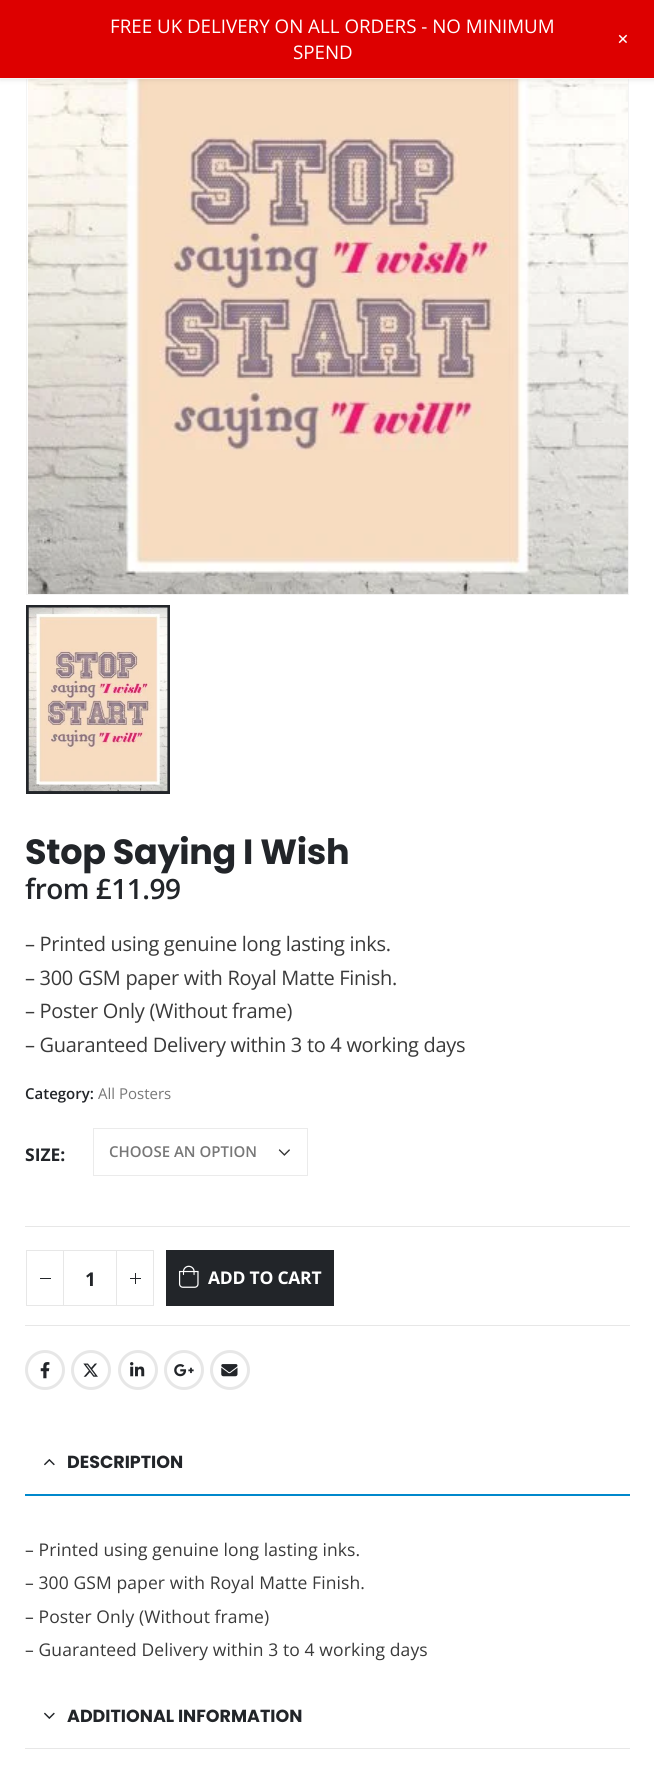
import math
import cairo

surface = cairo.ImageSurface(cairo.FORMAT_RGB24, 654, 1789)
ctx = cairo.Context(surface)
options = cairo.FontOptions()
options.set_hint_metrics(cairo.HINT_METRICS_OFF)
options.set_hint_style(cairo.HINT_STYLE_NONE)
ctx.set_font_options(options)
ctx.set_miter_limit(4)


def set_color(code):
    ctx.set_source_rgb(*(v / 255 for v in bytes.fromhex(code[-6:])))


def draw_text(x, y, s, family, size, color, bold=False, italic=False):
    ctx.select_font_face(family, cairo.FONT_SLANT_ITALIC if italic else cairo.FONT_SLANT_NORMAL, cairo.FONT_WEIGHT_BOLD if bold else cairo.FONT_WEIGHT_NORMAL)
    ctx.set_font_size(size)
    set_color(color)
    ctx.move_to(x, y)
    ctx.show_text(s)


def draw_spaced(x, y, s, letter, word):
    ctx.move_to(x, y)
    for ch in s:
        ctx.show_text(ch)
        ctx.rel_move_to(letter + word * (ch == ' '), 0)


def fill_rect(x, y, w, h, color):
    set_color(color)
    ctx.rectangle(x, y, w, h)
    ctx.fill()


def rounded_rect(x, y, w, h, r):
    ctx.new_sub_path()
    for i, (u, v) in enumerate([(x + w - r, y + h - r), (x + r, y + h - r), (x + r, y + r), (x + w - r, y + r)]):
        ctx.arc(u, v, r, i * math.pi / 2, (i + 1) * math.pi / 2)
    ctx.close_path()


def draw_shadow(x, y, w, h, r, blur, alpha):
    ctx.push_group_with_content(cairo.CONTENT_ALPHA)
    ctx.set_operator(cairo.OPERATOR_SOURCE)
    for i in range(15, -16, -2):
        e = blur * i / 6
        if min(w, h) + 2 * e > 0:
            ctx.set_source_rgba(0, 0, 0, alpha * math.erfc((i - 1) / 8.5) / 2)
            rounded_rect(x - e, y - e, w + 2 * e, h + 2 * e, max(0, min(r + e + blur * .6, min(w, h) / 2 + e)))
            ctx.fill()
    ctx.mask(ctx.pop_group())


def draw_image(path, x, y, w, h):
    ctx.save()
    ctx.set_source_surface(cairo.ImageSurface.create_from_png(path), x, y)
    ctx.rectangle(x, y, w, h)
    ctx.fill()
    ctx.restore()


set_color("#ffffff")
ctx.paint()
ctx.rectangle(26.5, -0.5, 602, 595)
set_color("#f4f4f4")
ctx.set_line_width(1)
ctx.stroke()
draw_image("assets/img1.png", 28, 79, 600, 515)
set_color("#000000")
draw_shadow(0, 0, 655, 79, 0, 2, 0.06)
fill_rect(0, 78, 654, 1, "#ffffff")
set_color("#000000")
draw_shadow(0, 4, 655, 77, 0, 2.5, 0.05)
fill_rect(0, 0, 654, 78, "#dd0000")
draw_text(110, 33, "FREE UK DELIVERY ON ALL ORDERS - NO MINIMUM", "Open Sans", 18.75, "#ffffff")
draw_text(293, 59, "SPEND", "Open Sans", 18.75, "#ffffff")
ctx.save()
ctx.translate(613, 40)
ctx.rotate(45 * math.pi / 180)
draw_text(0, 0, "+", "Open Sans", 22, "#ffffff")
ctx.restore()
ctx.rectangle(27.5, 606.5, 141, 186)
set_color("#222529")
ctx.set_line_width(3)
ctx.stroke()
draw_image("assets/img2.png", 28, 607, 140, 185)
ctx.select_font_face("Poppins", cairo.FONT_SLANT_NORMAL, cairo.FONT_WEIGHT_BOLD)
ctx.set_font_size(35)
draw_spaced(25, 864, "Stop Saying I Wish", -0.3, 0)
ctx.select_font_face("Open Sans SemiBold")
ctx.set_font_size(28)
draw_spaced(25, 899, "from £11.99", -0.5, 0)
ctx.select_font_face("Open Sans")
ctx.set_font_size(20)
set_color("#3a3a3a")
draw_spaced(25, 951, "– Printed using genuine long lasting inks.", -0.3, 0)
draw_spaced(25, 985, "– 300 GSM paper with Royal Matte Finish.", -0.3, 0)
draw_spaced(25, 1018, "– Poster Only (Without frame)", -0.3, 0)
draw_spaced(25, 1052, "– Guaranteed Delivery within 3 to 4 working days", -0.3, 0)
draw_text(25, 1099, "Category:", "Open Sans SemiBold", 15, "#222529")
draw_text(98, 1099, "All Posters", "Open Sans", 15, "#777777")
draw_text(25, 1161, "SIZE:", "Open Sans", 17.5, "#222529", bold=True)
draw_image("assets/img3.png", 278, 1149, 12, 7)
ctx.rectangle(93.5, 1128.5, 214, 47)
set_color("#ebebeb")
ctx.set_line_width(1)
ctx.stroke()
draw_text(109, 1157, "CHOOSE AN OPTION", "Open Sans SemiBold", 15, "#777777")
fill_rect(25, 1226, 605, 1, "#e7e7e7")
fill_rect(25, 1325, 605, 1, "#e7e7e7")
fill_rect(63, 1250, 55, 1, "#e7e7e7")
fill_rect(63, 1305, 55, 1, "#e7e7e7")
ctx.rectangle(26.5, 1250.5, 37, 55)
ctx.stroke()
fill_rect(40, 1278, 11, 1, "#222529")
draw_text(85, 1286, "1", "Open Sans", 19, "#222529", bold=True)
ctx.rectangle(116.5, 1250.5, 37, 55)
set_color("#e7e7e7")
ctx.stroke()
fill_rect(130, 1278, 11, 1, "#222529")
fill_rect(135, 1273, 1, 11, "#222529")
fill_rect(166, 1250, 168, 56, "#222529")
draw_image("assets/img4.png", 178, 1265, 21, 23)
ctx.set_font_size(17.5)
set_color("#ffffff")
draw_spaced(208, 1284, "ADD TO CART", -0.25, 0)
ctx.new_path()
ctx.arc(45, 1370, 18.5, 0, 2 * math.pi)
set_color("#e7e7e7")
ctx.set_line_width(3)
ctx.stroke()
draw_image("assets/img5.png", 40, 1362, 10, 17)
ctx.arc(91, 1370, 18.5, 0, 2 * math.pi)
ctx.stroke()
draw_image("assets/img6.png", 83, 1363, 15, 14)
ctx.arc(138, 1370, 18.5, 0, 2 * math.pi)
ctx.stroke()
draw_image("assets/img7.png", 130, 1362, 15, 15)
ctx.arc(184, 1370, 18.5, 0, 2 * math.pi)
ctx.stroke()
draw_image("assets/img8.png", 174, 1364, 20, 13)
ctx.arc(230, 1370, 18.5, 0, 2 * math.pi)
ctx.stroke()
draw_image("assets/img9.png", 221, 1364, 17, 13)
fill_rect(25, 1494, 605, 2, "#0088cc")
draw_image("assets/img10.png", 44, 1459, 11, 7)
draw_text(67, 1468, "DESCRIPTION", "Poppins", 17.5, "#222529", bold=True)
ctx.select_font_face("Open Sans")
set_color("#3a3a3a")
draw_spaced(25, 1556, "– Printed using genuine long lasting inks.", 0.1, 0)
draw_spaced(25, 1589, "– 300 GSM paper with Royal Matte Finish.", 0.1, 0)
draw_spaced(25, 1623, "– Poster Only (Without frame)", 0.1, 0)
draw_spaced(25, 1656, "– Guaranteed Delivery within 3 to 4 working days", 0.1, 0)
fill_rect(25, 1748, 605, 1, "#e7e7e7")
draw_image("assets/img11.png", 44, 1712, 11, 7)
draw_text(67, 1722, "ADDITIONAL INFORMATION", "Poppins", 17.5, "#222529", bold=True)
surface.write_to_png("output.png")
